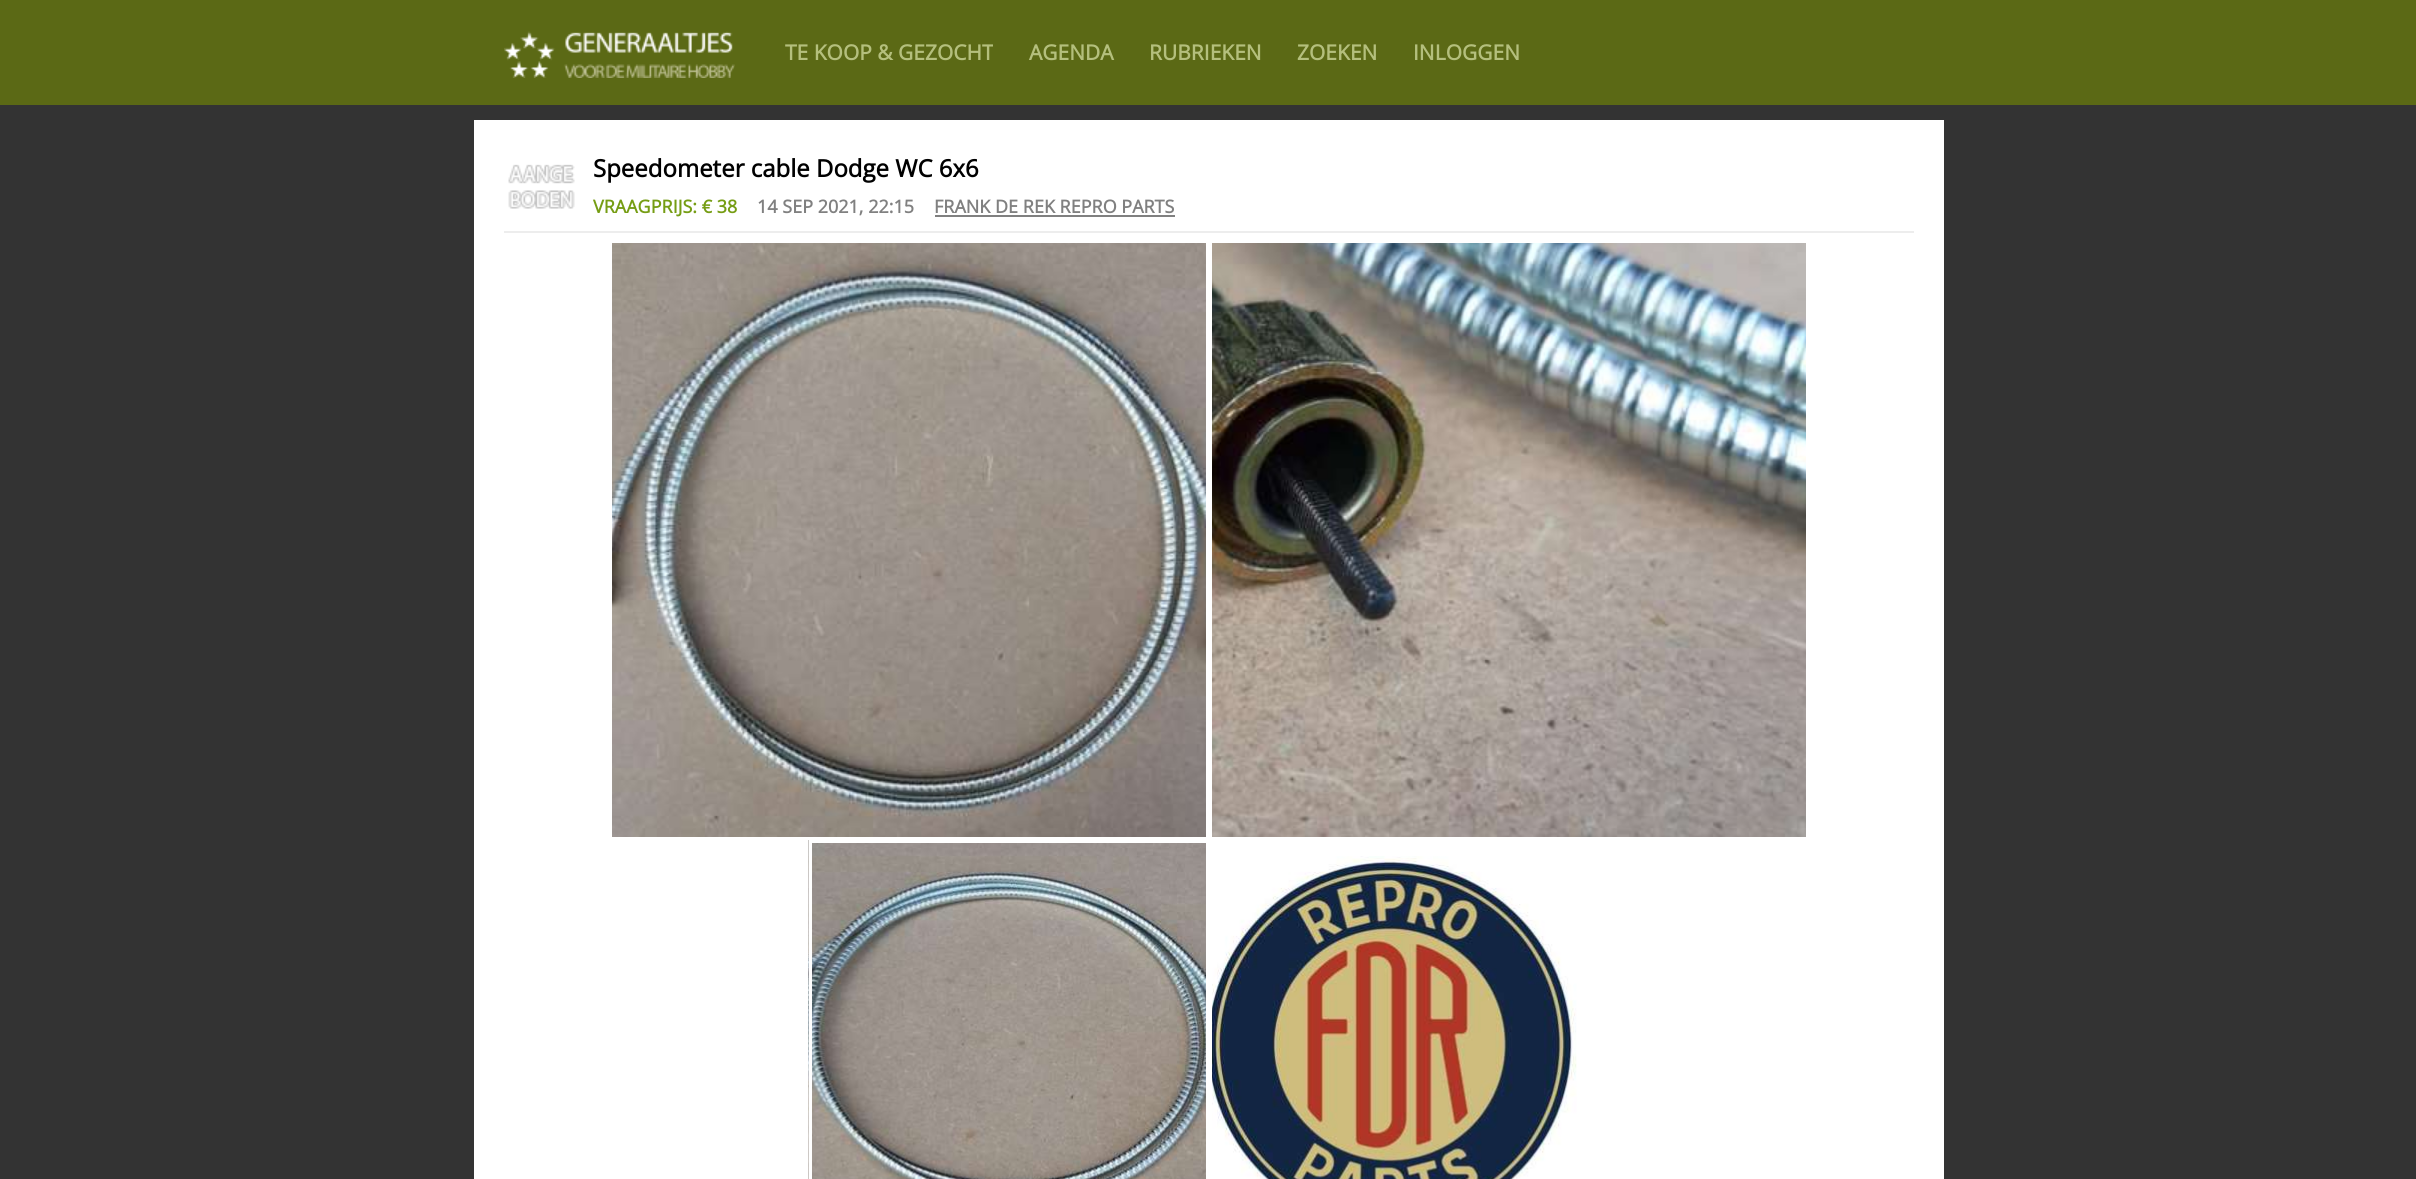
import math
import cairo

surface = cairo.ImageSurface(cairo.FORMAT_RGB24, 2416, 1179)
ctx = cairo.Context(surface)
options = cairo.FontOptions()
options.set_hint_metrics(cairo.HINT_METRICS_OFF)
options.set_hint_style(cairo.HINT_STYLE_NONE)
ctx.set_font_options(options)
ctx.set_miter_limit(4)


def set_color(code):
    ctx.set_source_rgb(*(v / 255 for v in bytes.fromhex(code[-6:])))


def draw_text(x, y, s, family, size, color, bold=False, italic=False):
    ctx.select_font_face(family, cairo.FONT_SLANT_ITALIC if italic else cairo.FONT_SLANT_NORMAL, cairo.FONT_WEIGHT_BOLD if bold else cairo.FONT_WEIGHT_NORMAL)
    ctx.set_font_size(size)
    set_color(color)
    ctx.move_to(x, y)
    ctx.show_text(s)


def fill_rect(x, y, w, h, color):
    set_color(color)
    ctx.rectangle(x, y, w, h)
    ctx.fill()


def draw_image(path, x, y, w, h):
    ctx.save()
    ctx.set_source_surface(cairo.ImageSurface.create_from_png(path), x, y)
    ctx.rectangle(x, y, w, h)
    ctx.fill()
    ctx.restore()


set_color("#333333")
ctx.paint()
fill_rect(0, 0, 2416, 105, "#5b6915")
draw_image("assets/img1.png", 504, 31, 231, 47)
ctx.save()
ctx.rectangle(785, 0, 208, 105)
ctx.clip()
draw_text(785, 60, "TE KOOP & GEZOCHT", "Open Sans", 21, "#b4bf7d", bold=True)
ctx.restore()
draw_text(1029, 60, "AGENDA", "Open Sans", 21, "#b4bf7d", bold=True)
draw_text(1149, 60, "RUBRIEKEN", "Open Sans", 21, "#b4bf7d", bold=True)
draw_text(1297, 60, "ZOEKEN", "Open Sans", 21, "#b4bf7d", bold=True)
draw_text(1413, 60, "INLOGGEN", "Open Sans", 21, "#b4bf7d", bold=True)
fill_rect(474, 120, 1470, 1059, "#ffffff")
draw_image("assets/img2.png", 508, 164, 67, 45)
draw_text(593, 177, "Speedometer cable Dodge WC 6x6", "Open Sans", 24, "#000000", bold=True)
draw_text(593, 213, "VRAAGPRIJS: € 38", "Open Sans", 18, "#769d14", bold=True)
draw_text(757, 213, "14 SEP 2021, 22:15", "Open Sans", 18, "#808080", bold=True)
draw_text(934, 213, "FRANK DE REK REPRO PARTS", "Open Sans", 18, "#808080", bold=True)
fill_rect(935, 215, 240, 2, "#808080")
fill_rect(504, 231, 1410, 2, "#ededed")
draw_image("assets/img3.png", 612, 243, 594, 594)
draw_image("assets/img4.png", 1212, 243, 594, 594)
draw_image("assets/img5.png", 808, 840, 398, 339)
ctx.rectangle(810.5, 841.5, 397, 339)
set_color("#ffffff")
ctx.set_line_width(3)
ctx.stroke()
draw_image("assets/img6.png", 1212, 856, 365, 323)
surface.write_to_png("output.png")
